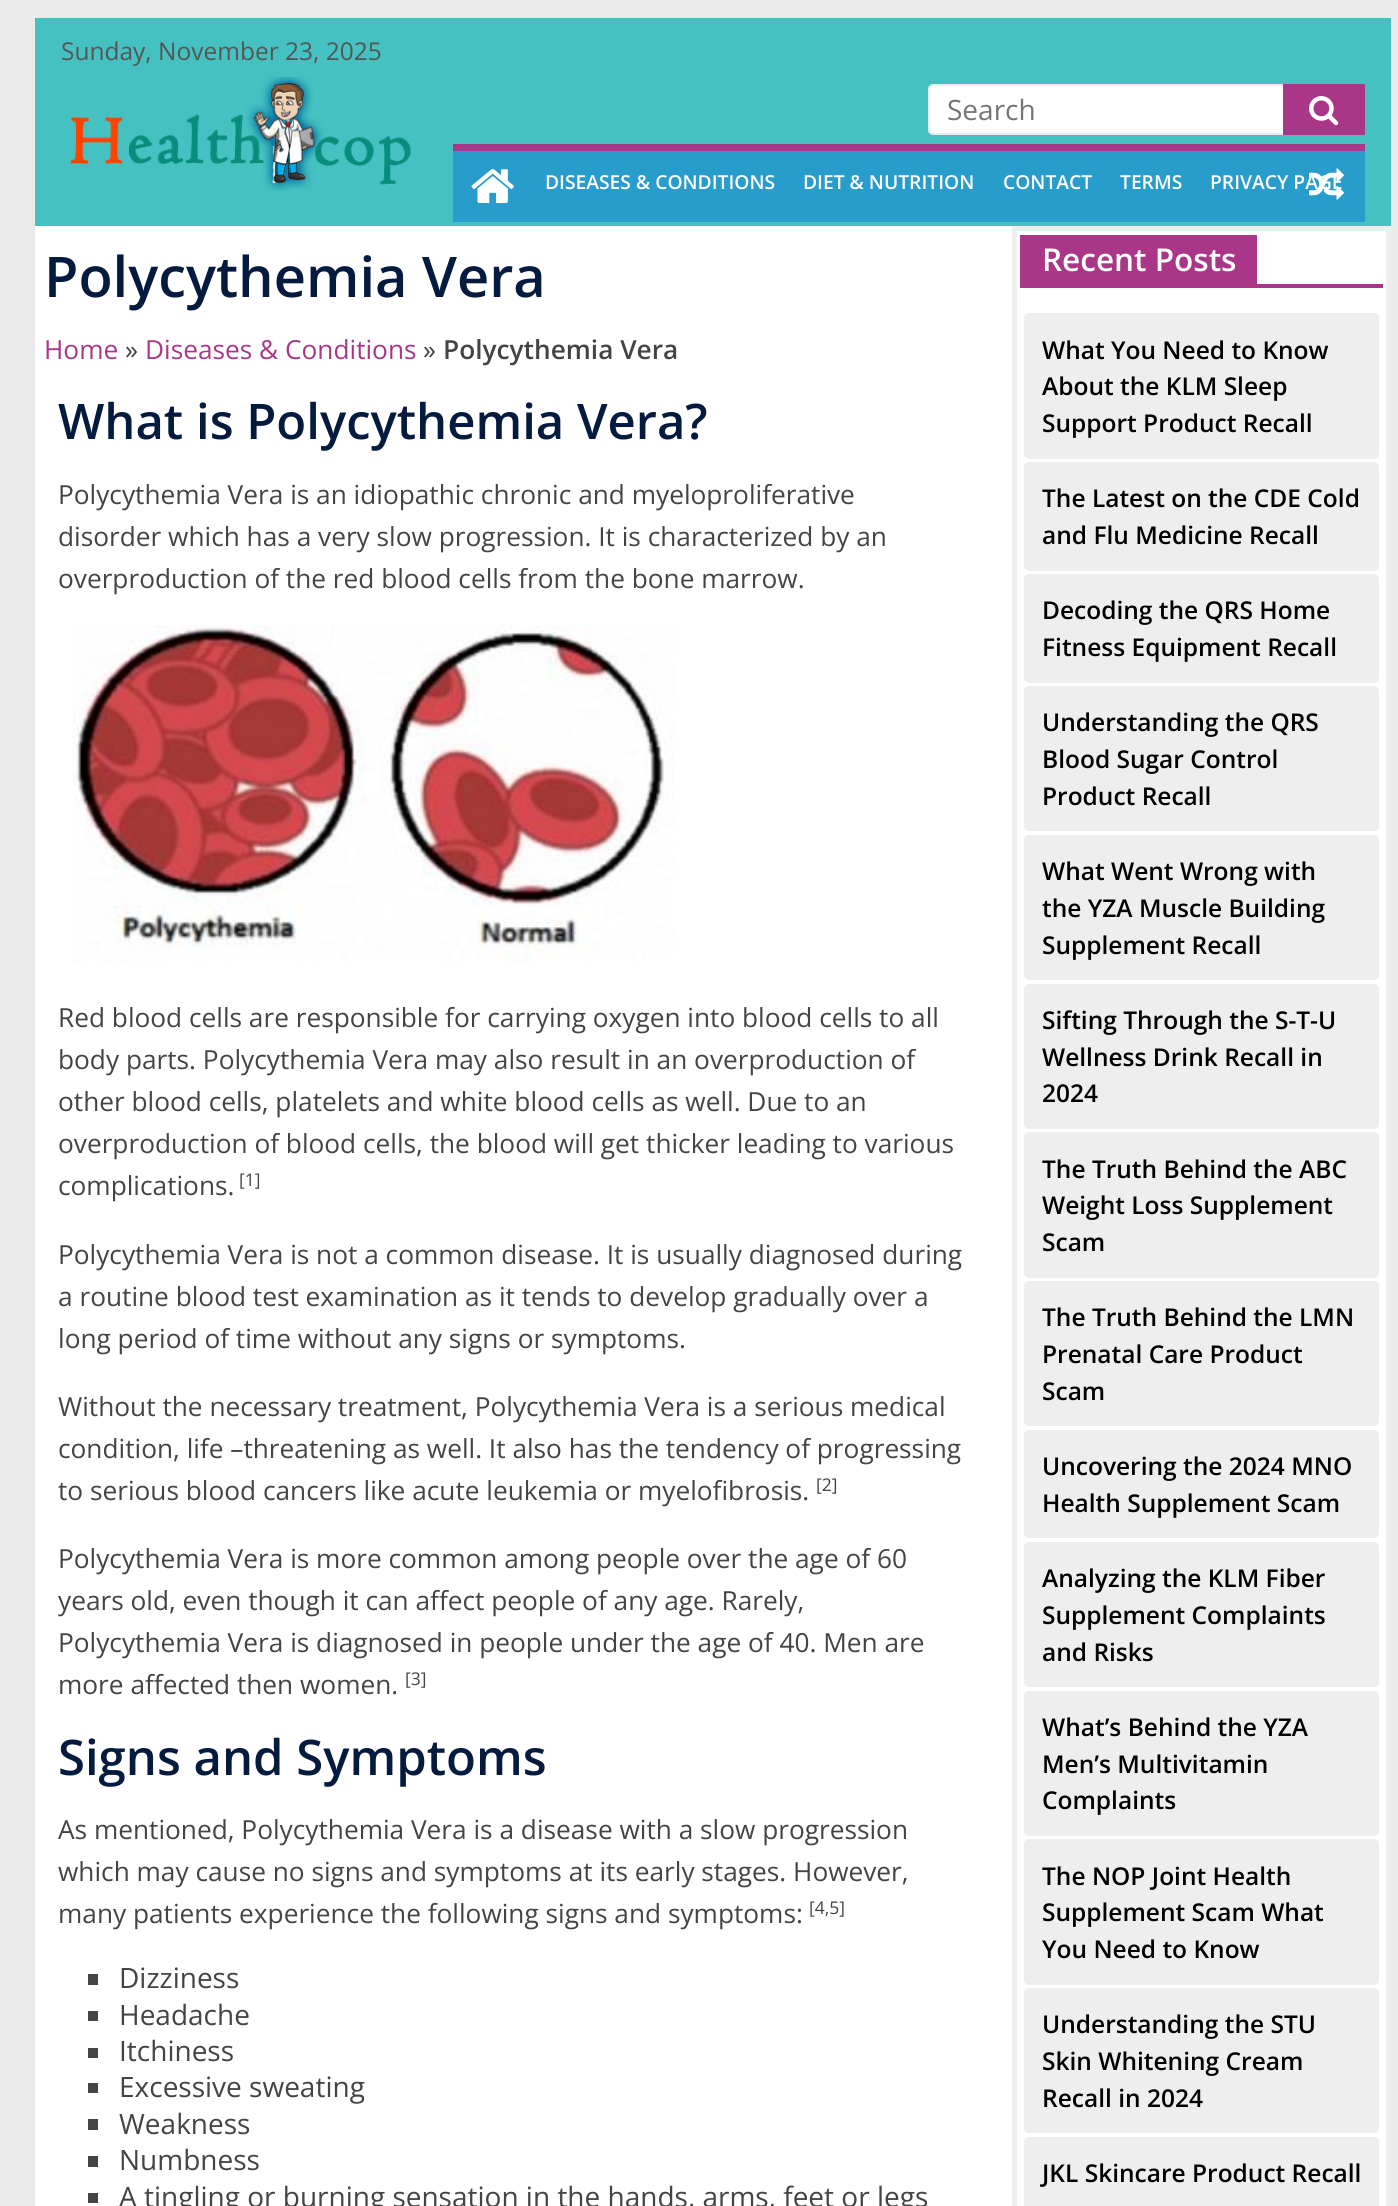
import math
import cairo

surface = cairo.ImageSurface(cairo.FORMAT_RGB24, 1398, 2206)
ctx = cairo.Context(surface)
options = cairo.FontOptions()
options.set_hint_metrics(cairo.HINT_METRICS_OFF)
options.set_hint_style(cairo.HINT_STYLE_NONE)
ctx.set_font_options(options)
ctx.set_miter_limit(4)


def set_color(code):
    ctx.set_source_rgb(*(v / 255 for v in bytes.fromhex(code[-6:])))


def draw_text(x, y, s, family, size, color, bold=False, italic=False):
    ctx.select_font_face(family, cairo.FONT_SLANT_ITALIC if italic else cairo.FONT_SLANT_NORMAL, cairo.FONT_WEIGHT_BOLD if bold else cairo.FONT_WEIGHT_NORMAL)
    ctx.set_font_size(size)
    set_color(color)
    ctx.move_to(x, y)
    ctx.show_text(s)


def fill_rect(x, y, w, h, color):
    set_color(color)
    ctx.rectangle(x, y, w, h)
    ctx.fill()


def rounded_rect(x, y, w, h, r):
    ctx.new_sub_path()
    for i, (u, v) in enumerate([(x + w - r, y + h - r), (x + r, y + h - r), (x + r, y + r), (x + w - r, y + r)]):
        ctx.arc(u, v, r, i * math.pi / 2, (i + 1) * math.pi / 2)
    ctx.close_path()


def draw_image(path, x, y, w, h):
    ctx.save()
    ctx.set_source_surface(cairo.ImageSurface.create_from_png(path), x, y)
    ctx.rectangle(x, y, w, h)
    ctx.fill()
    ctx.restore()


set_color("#eaeaea")
ctx.paint()
fill_rect(35, 18, 1356, 208, "#46c1c1")
draw_text(61, 60, "Sunday, November 23, 2025", "Open Sans", 24.5, "#555555")
draw_image("assets/img1.png", 70, 77, 341, 114)
set_color("#ffffff")
rounded_rect(929, 85, 376, 49, 4)
ctx.fill_preserve()
set_color("#eaeaea")
ctx.stroke()
draw_text(947, 120, "Search", "Open Sans", 28, "#757575")
fill_rect(1283, 84, 82, 51, "#aa3687")
draw_image("assets/img2.png", 1309, 96, 30, 30)
fill_rect(453, 151, 912, 71, "#289dcc")
fill_rect(453, 144, 912, 7, "#aa3687")
draw_image("assets/img3.png", 471, 169, 43, 34)
draw_text(1210, 189, "PRIVACY PAGE", "Open Sans SemiBold", 19.25, "#ffffff")
draw_image("assets/img4.png", 1309, 168, 35, 32)
draw_text(545, 189, "DISEASES & CONDITIONS", "Open Sans SemiBold", 19.25, "#ffffff")
draw_text(803, 189, "DIET & NUTRITION", "Open Sans SemiBold", 19.25, "#ffffff")
draw_text(1003, 189, "CONTACT", "Open Sans SemiBold", 19.25, "#ffffff")
draw_text(1120, 189, "TERMS", "Open Sans SemiBold", 19.25, "#ffffff")
fill_rect(35, 226, 1351, 1980, "#ffffff")
draw_text(44, 297, "Polycythemia Vera", "Open Sans SemiBold", 56, "#041a3e")
draw_text(44, 359, "Home", "Open Sans", 26.25, "#aa3687")
draw_text(125, 359, "»", "Open Sans", 26.25, "#444444")
draw_text(145, 359, "Diseases & Conditions", "Open Sans", 26.25, "#aa3687")
draw_text(423, 359, "»", "Open Sans", 26.25, "#444444")
draw_text(443, 359, "Polycythemia Vera", "Open Sans SemiBold", 26.25, "#444444")
draw_text(58, 439, "What is Polycythemia Vera?", "Open Sans SemiBold", 49, "#041a3e")
draw_text(58, 504, "Polycythemia Vera is an idiopathic chronic and myeloproliferative", "Open Sans", 26.25, "#444444")
draw_text(58, 546, "disorder which has a very slow progression. It is characterized by an", "Open Sans", 26.25, "#444444")
draw_text(58, 588, "overproduction of the red blood cells from the bone marrow.", "Open Sans", 26.25, "#444444")
draw_image("assets/img5.png", 72, 625, 602, 337)
draw_text(58, 1027, "Red blood cells are responsible for carrying oxygen into blood cells to all", "Open Sans", 26.25, "#444444")
draw_text(58, 1069, "body parts. Polycythemia Vera may also result in an overproduction of", "Open Sans", 26.25, "#444444")
draw_text(58, 1111, "other blood cells, platelets and white blood cells as well. Due to an", "Open Sans", 26.25, "#444444")
draw_text(58, 1153, "overproduction of blood cells, the blood will get thicker leading to various", "Open Sans", 26.25, "#444444")
draw_text(58, 1195, "complications.", "Open Sans", 26.25, "#444444")
draw_text(239, 1186, "[1]", "Open Sans", 17.5, "#444444")
draw_text(58, 1264, "Polycythemia Vera is not a common disease. It is usually diagnosed during", "Open Sans", 26.25, "#444444")
draw_text(58, 1306, "a routine blood test examination as it tends to develop gradually over a", "Open Sans", 26.25, "#444444")
draw_text(58, 1348, "long period of time without any signs or symptoms.", "Open Sans", 26.25, "#444444")
draw_text(58, 1416, "Without the necessary treatment, Polycythemia Vera is a serious medical", "Open Sans", 26.25, "#444444")
draw_text(58, 1458, "condition, life –threatening as well. It also has the tendency of progressing", "Open Sans", 26.25, "#444444")
draw_text(58, 1500, "to serious blood cancers like acute leukemia or myelofibrosis.", "Open Sans", 26.25, "#444444")
draw_text(816, 1491, "[2]", "Open Sans", 17.5, "#444444")
draw_text(58, 1568, "Polycythemia Vera is more common among people over the age of 60", "Open Sans", 26.25, "#444444")
draw_text(58, 1610, "years old, even though it can affect people of any age. Rarely,", "Open Sans", 26.25, "#444444")
draw_text(58, 1652, "Polycythemia Vera is diagnosed in people under the age of 40. Men are", "Open Sans", 26.25, "#444444")
draw_text(58, 1694, "more affected then women.", "Open Sans", 26.25, "#444444")
draw_text(405, 1685, "[3]", "Open Sans", 17.5, "#444444")
draw_text(58, 1775, "Signs and Symptoms", "Open Sans SemiBold", 49, "#041a3e")
draw_text(58, 1839, "As mentioned, Polycythemia Vera is a disease with a slow progression", "Open Sans", 26.25, "#444444")
draw_text(58, 1881, "which may cause no signs and symptoms at its early stages. However,", "Open Sans", 26.25, "#444444")
draw_text(58, 1923, "many patients experience the following signs and symptoms:", "Open Sans", 26.25, "#444444")
draw_text(809, 1914, "[4,5]", "Open Sans", 17.5, "#444444")
fill_rect(88, 1974, 10, 11, "#444444")
draw_text(119, 1988, "Dizziness", "Open Sans", 28, "#444444")
fill_rect(88, 2011, 10, 10, "#444444")
draw_text(119, 2025, "Headache", "Open Sans", 28, "#444444")
fill_rect(88, 2048, 10, 10, "#444444")
draw_text(119, 2061, "Itchiness", "Open Sans", 28, "#444444")
fill_rect(88, 2083, 10, 10, "#444444")
draw_text(119, 2097, "Excessive sweating", "Open Sans", 28, "#444444")
fill_rect(88, 2119, 10, 11, "#444444")
draw_text(119, 2134, "Weakness", "Open Sans", 28, "#444444")
fill_rect(88, 2156, 10, 11, "#444444")
draw_text(119, 2170, "Numbness", "Open Sans", 28, "#444444")
fill_rect(88, 2193, 10, 10, "#444444")
draw_text(119, 2207, "A tingling or burning sensation in the hands, arms, feet or legs", "Open Sans", 28, "#444444")
ctx.rectangle(1014.5, 228.5, 374, 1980)
set_color("#eeeeee")
ctx.set_line_width(5)
ctx.stroke()
fill_rect(1020, 284, 363, 4, "#aa3687")
fill_rect(1020, 235, 237, 49, "#aa3687")
draw_text(1042, 271, "Recent Posts", "Open Sans SemiBold", 31.5, "#ffffff")
set_color("#eeeeee")
rounded_rect(1024, 313, 355, 146, 5)
ctx.fill()
draw_text(1042, 359, "What You Need to Know", "Open Sans SemiBold", 24.5, "#000000")
draw_text(1042, 395, "About the KLM Sleep", "Open Sans SemiBold", 24.5, "#000000")
draw_text(1042, 432, "Support Product Recall", "Open Sans SemiBold", 24.5, "#000000")
set_color("#eeeeee")
rounded_rect(1024, 462, 355, 109, 5)
ctx.fill()
draw_text(1042, 507, "The Latest on the CDE Cold", "Open Sans SemiBold", 24.5, "#000000")
draw_text(1042, 544, "and Flu Medicine Recall", "Open Sans SemiBold", 24.5, "#000000")
set_color("#eeeeee")
rounded_rect(1024, 574, 355, 109, 5)
ctx.fill()
draw_text(1042, 619, "Decoding the QRS Home", "Open Sans SemiBold", 24.5, "#000000")
draw_text(1042, 656, "Fitness Equipment Recall", "Open Sans SemiBold", 24.5, "#000000")
set_color("#eeeeee")
rounded_rect(1024, 686, 355, 145, 5)
ctx.fill()
draw_text(1042, 731, "Understanding the QRS", "Open Sans SemiBold", 24.5, "#000000")
draw_text(1042, 768, "Blood Sugar Control", "Open Sans SemiBold", 24.5, "#000000")
draw_text(1042, 805, "Product Recall", "Open Sans SemiBold", 24.5, "#000000")
set_color("#eeeeee")
rounded_rect(1024, 835, 355, 145, 5)
ctx.fill()
draw_text(1042, 880, "What Went Wrong with", "Open Sans SemiBold", 24.5, "#000000")
draw_text(1042, 917, "the YZA Muscle Building", "Open Sans SemiBold", 24.5, "#000000")
draw_text(1042, 954, "Supplement Recall", "Open Sans SemiBold", 24.5, "#000000")
set_color("#eeeeee")
rounded_rect(1024, 984, 355, 145, 5)
ctx.fill()
draw_text(1042, 1029, "Sifting Through the S-T-U", "Open Sans SemiBold", 24.5, "#000000")
draw_text(1042, 1066, "Wellness Drink Recall in", "Open Sans SemiBold", 24.5, "#000000")
draw_text(1042, 1102, "2024", "Open Sans SemiBold", 24.5, "#000000")
set_color("#eeeeee")
rounded_rect(1024, 1132, 355, 146, 5)
ctx.fill()
draw_text(1042, 1178, "The Truth Behind the ABC", "Open Sans SemiBold", 24.5, "#000000")
draw_text(1042, 1214, "Weight Loss Supplement", "Open Sans SemiBold", 24.5, "#000000")
draw_text(1042, 1251, "Scam", "Open Sans SemiBold", 24.5, "#000000")
set_color("#eeeeee")
rounded_rect(1024, 1281, 355, 145, 5)
ctx.fill()
draw_text(1042, 1326, "The Truth Behind the LMN", "Open Sans SemiBold", 24.5, "#000000")
draw_text(1042, 1363, "Prenatal Care Product", "Open Sans SemiBold", 24.5, "#000000")
draw_text(1042, 1400, "Scam", "Open Sans SemiBold", 24.5, "#000000")
set_color("#eeeeee")
rounded_rect(1024, 1430, 355, 108, 5)
ctx.fill()
draw_text(1042, 1475, "Uncovering the 2024 MNO", "Open Sans SemiBold", 24.5, "#000000")
draw_text(1042, 1512, "Health Supplement Scam", "Open Sans SemiBold", 24.5, "#000000")
set_color("#eeeeee")
rounded_rect(1024, 1542, 355, 145, 5)
ctx.fill()
draw_text(1042, 1587, "Analyzing the KLM Fiber", "Open Sans SemiBold", 24.5, "#000000")
draw_text(1042, 1624, "Supplement Complaints", "Open Sans SemiBold", 24.5, "#000000")
draw_text(1042, 1661, "and Risks", "Open Sans SemiBold", 24.5, "#000000")
set_color("#eeeeee")
rounded_rect(1024, 1691, 355, 145, 5)
ctx.fill()
draw_text(1042, 1736, "What’s Behind the YZA", "Open Sans SemiBold", 24.5, "#000000")
draw_text(1042, 1773, "Men’s Multivitamin", "Open Sans SemiBold", 24.5, "#000000")
draw_text(1042, 1809, "Complaints", "Open Sans SemiBold", 24.5, "#000000")
set_color("#eeeeee")
rounded_rect(1024, 1839, 355, 146, 5)
ctx.fill()
draw_text(1042, 1885, "The NOP Joint Health", "Open Sans SemiBold", 24.5, "#000000")
draw_text(1042, 1921, "Supplement Scam What", "Open Sans SemiBold", 24.5, "#000000")
draw_text(1042, 1958, "You Need to Know", "Open Sans SemiBold", 24.5, "#000000")
set_color("#eeeeee")
rounded_rect(1024, 1988, 355, 145, 5)
ctx.fill()
draw_text(1042, 2033, "Understanding the STU", "Open Sans SemiBold", 24.5, "#000000")
draw_text(1042, 2070, "Skin Whitening Cream", "Open Sans SemiBold", 24.5, "#000000")
draw_text(1042, 2107, "Recall in 2024", "Open Sans SemiBold", 24.5, "#000000")
set_color("#eeeeee")
rounded_rect(1024, 2137, 355, 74, 5)
ctx.fill()
draw_text(1042, 2182, "JKL Skincare Product Recall", "Open Sans SemiBold", 24.5, "#000000")
surface.write_to_png("output.png")
